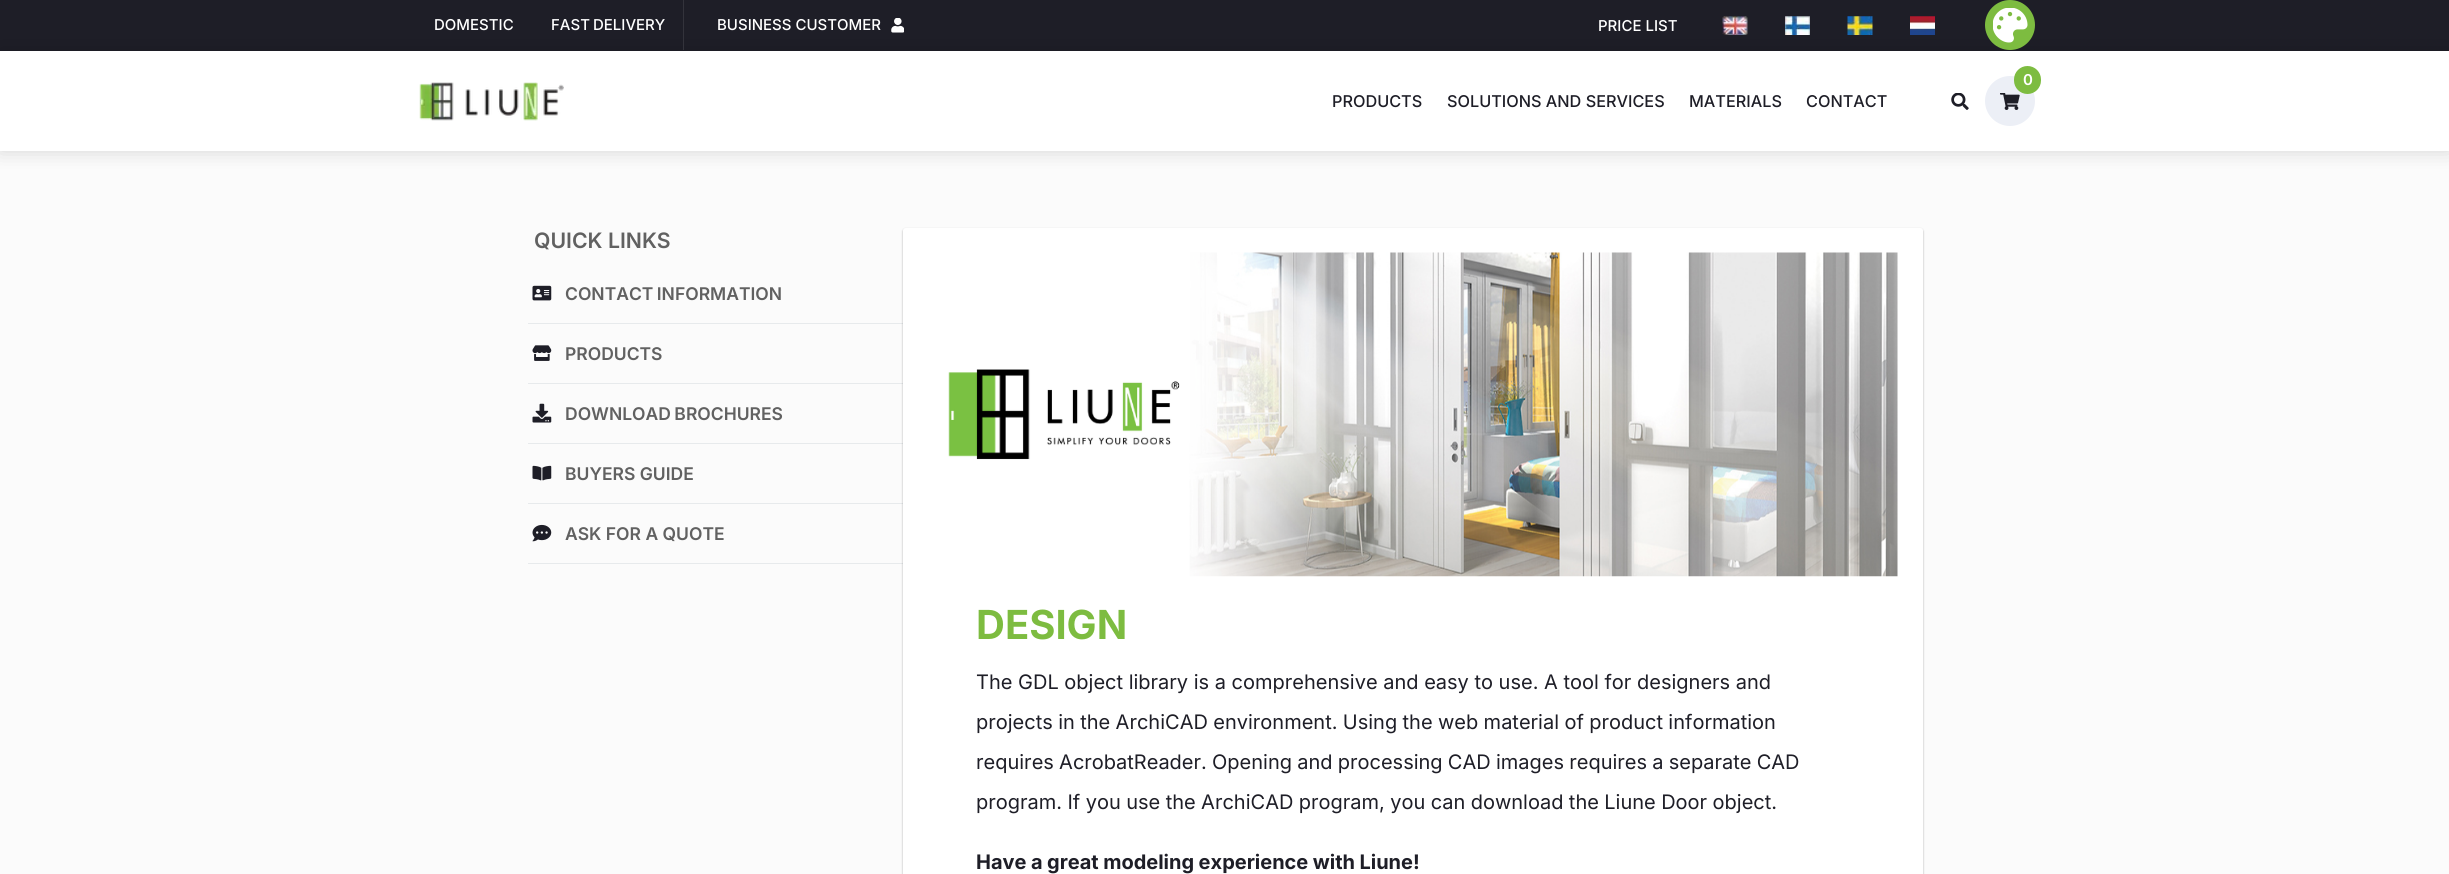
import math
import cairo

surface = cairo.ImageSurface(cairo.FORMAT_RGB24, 2449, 874)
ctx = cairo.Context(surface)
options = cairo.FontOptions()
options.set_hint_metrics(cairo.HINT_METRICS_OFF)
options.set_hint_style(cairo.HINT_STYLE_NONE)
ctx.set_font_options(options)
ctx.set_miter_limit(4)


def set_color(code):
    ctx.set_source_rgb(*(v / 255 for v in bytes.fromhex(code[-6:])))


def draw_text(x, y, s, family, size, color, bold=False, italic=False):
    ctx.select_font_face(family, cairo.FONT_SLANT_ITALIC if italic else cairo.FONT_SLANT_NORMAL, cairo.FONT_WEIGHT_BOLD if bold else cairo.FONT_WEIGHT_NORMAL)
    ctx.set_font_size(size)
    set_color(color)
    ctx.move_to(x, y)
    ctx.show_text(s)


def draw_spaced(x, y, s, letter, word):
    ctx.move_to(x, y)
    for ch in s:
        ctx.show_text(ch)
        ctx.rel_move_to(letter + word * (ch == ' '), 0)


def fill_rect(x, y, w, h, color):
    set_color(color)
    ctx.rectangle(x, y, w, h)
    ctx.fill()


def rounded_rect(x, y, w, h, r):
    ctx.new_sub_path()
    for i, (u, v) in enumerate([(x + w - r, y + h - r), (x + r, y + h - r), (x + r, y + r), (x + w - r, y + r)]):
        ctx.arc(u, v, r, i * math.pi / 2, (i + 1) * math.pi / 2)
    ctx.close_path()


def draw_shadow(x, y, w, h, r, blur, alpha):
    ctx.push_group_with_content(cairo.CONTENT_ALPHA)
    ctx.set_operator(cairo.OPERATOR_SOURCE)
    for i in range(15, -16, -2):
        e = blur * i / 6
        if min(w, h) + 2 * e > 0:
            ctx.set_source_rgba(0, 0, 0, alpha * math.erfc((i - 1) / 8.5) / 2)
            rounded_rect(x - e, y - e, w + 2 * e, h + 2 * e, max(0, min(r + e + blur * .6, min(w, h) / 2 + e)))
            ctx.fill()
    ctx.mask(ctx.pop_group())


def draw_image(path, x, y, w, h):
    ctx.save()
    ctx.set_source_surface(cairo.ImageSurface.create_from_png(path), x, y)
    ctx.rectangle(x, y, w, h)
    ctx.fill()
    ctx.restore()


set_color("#fbfbfb")
ctx.paint()
fill_rect(0, 0, 2449, 51, "#1e1e27")
set_color("#000000")
draw_shadow(0, 51, 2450, 100, 0, 10, 0.15)
draw_text(434, 30, "DOMESTIC", "Inter Medium", 15, "#ffffff")
draw_spaced(551, 30, "FAST DELIVERY", 0, -1)
fill_rect(683, 0, 1, 50, "#33333b")
draw_text(717, 30, "BUSINESS CUSTOMER", "Inter Medium", 15, "#ffffff")
draw_image("assets/img1.png", 891, 18, 13, 15)
draw_text(1598, 31, "PRICE LIST", "Inter Medium", 15, "#ffffff")
draw_image("assets/img2.png", 1722, 16, 26, 19)
draw_image("assets/img3.png", 1785, 16, 25, 19)
draw_image("assets/img4.png", 1847, 16, 26, 19)
draw_image("assets/img5.png", 1910, 16, 25, 19)
set_color("#7dbc40")
ctx.arc(2010, 25, 25, 0, 2 * math.pi)
ctx.fill()
draw_image("assets/img6.png", 1993, 8, 35, 35)
fill_rect(0, 51, 2449, 100, "#ffffff")
draw_image("assets/img7.png", 419, 82, 145, 39)
set_color("#eceff6")
ctx.arc(2010, 101, 25, 0, 2 * math.pi)
ctx.fill()
draw_image("assets/img8.png", 2000, 93, 20, 17)
set_color("#7dbc40")
rounded_rect(2014, 66, 27, 28, 13.5)
ctx.fill()
draw_text(2023, 85, "0", "Inter SemiBold", 15, "#ffffff")
draw_image("assets/img9.png", 1951, 93, 18, 17)
draw_text(1332, 107, "PRODUCTS", "Inter Medium", 16.25, "#1e1e27")
draw_text(1447, 107, "SOLUTIONS AND SERVICES", "Inter Medium", 16.25, "#1e1e27")
draw_text(1689, 107, "MATERIALS", "Inter Medium", 16.25, "#1e1e27")
draw_text(1806, 107, "CONTACT", "Inter Medium", 16.25, "#1e1e27")
draw_text(534, 248, "QUICK LINKS", "Inter SemiBold", 21.25, "#616161")
fill_rect(528, 323, 375, 1, "#e7eaec")
draw_image("assets/img10.png", 532, 285, 20, 16)
ctx.set_font_size(17.5)
set_color("#616161")
draw_spaced(565, 300, "CONTACT INFORMATION", 0, -1)
fill_rect(528, 383, 375, 1, "#e7eaec")
draw_image("assets/img11.png", 532, 345, 20, 16)
draw_text(565, 360, "PRODUCTS", "Inter SemiBold", 17.5, "#616161")
fill_rect(528, 443, 375, 1, "#e7eaec")
draw_image("assets/img12.png", 532, 403, 20, 20)
set_color("#616161")
draw_spaced(565, 420, "DOWNLOAD BROCHURES", 0, -1)
fill_rect(528, 503, 375, 1, "#e7eaec")
draw_image("assets/img13.png", 532, 465, 20, 16)
draw_text(565, 480, "BUYERS GUIDE", "Inter SemiBold", 17.5, "#616161")
fill_rect(528, 563, 375, 1, "#e7eaec")
draw_image("assets/img14.png", 532, 524, 20, 18)
draw_text(565, 540, "ASK FOR A QUOTE", "Inter SemiBold", 17.5, "#616161")
set_color("#000000")
draw_shadow(903, 229, 1020, 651, 2.5, 1, 0.3)
set_color("#ffffff")
rounded_rect(903, 228, 1020, 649, 2.5)
ctx.fill()
draw_image("assets/img15.png", 948, 252, 950, 325)
draw_text(976, 639, "DESIGN", "Inter", 40, "#7dbc40", bold=True)
draw_text(976, 689, "The GDL object library is a comprehensive and easy to use. A tool for designers and", "Inter", 20, "#1e1e27")
draw_spaced(976, 729, "projects in the ArchiCAD environment. Using the web material of product information", 0, -0.25)
draw_spaced(976, 769, "requires AcrobatReader. Opening and processing CAD images requires a separate CAD", 0, -0.4)
draw_spaced(976, 809, "program. If you use the ArchiCAD program, you can download the Liune Door object.", 0, -0.2)
ctx.select_font_face("Inter", cairo.FONT_SLANT_NORMAL, cairo.FONT_WEIGHT_BOLD)
draw_spaced(976, 869, "Have a great modeling experience with Liune!", 0, -0.25)
surface.write_to_png("output.png")
